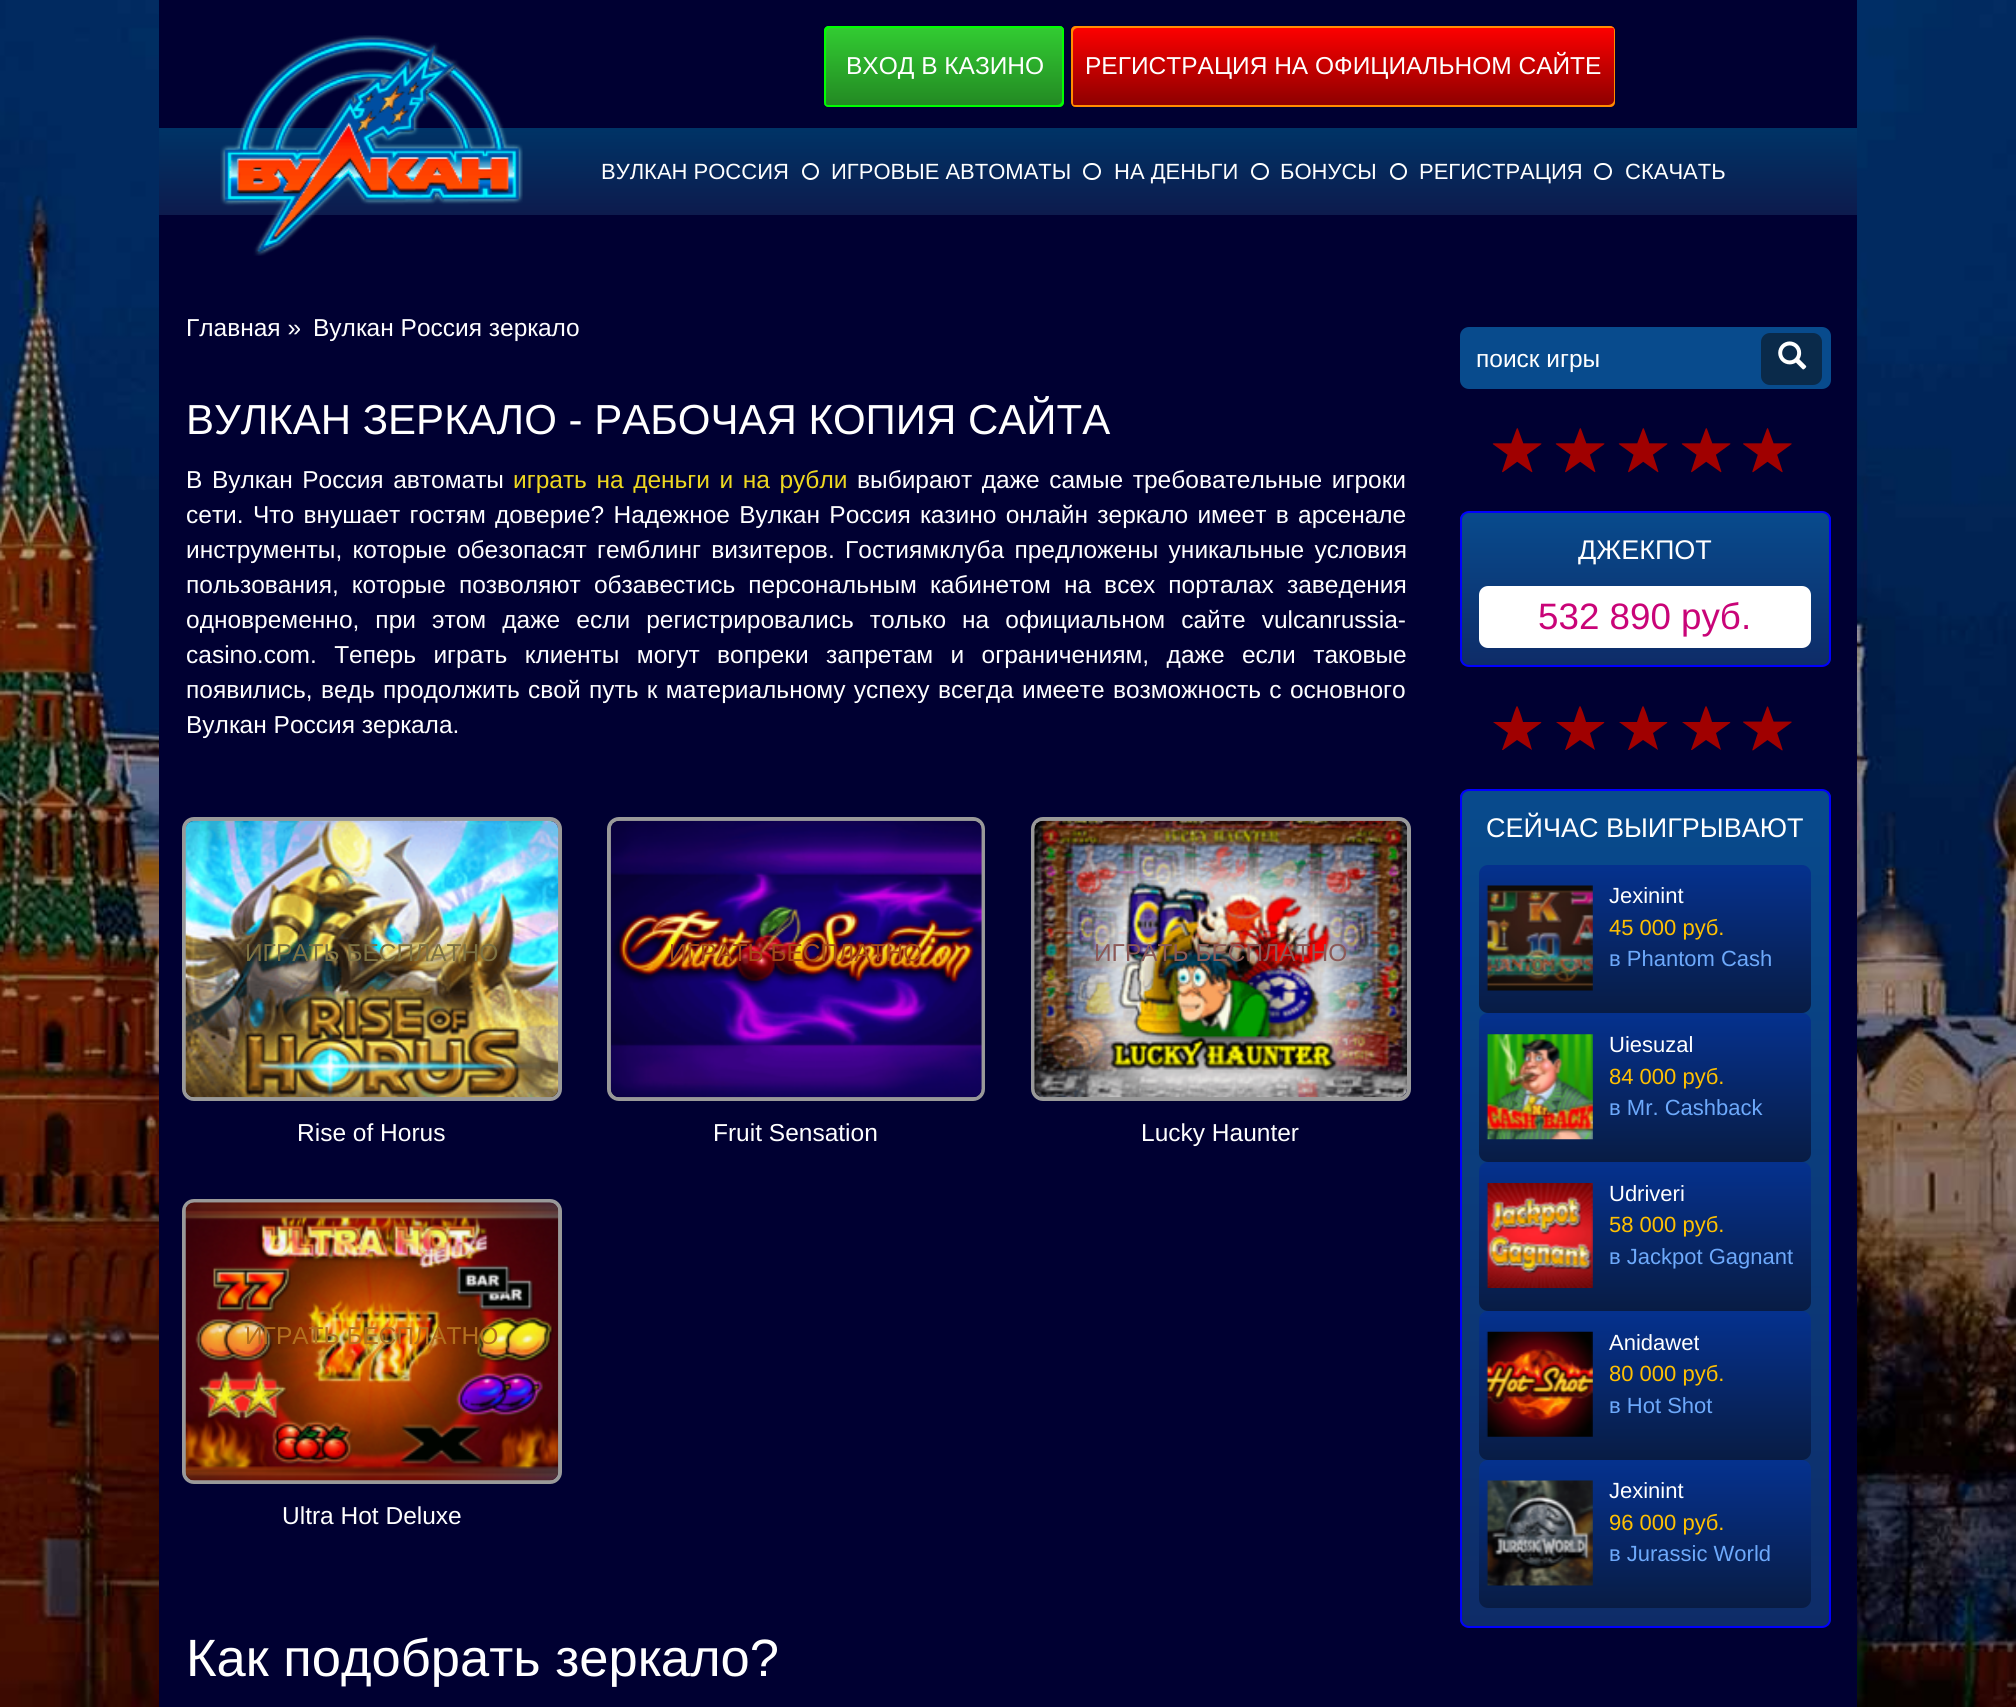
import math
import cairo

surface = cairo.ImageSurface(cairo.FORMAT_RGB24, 2016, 1707)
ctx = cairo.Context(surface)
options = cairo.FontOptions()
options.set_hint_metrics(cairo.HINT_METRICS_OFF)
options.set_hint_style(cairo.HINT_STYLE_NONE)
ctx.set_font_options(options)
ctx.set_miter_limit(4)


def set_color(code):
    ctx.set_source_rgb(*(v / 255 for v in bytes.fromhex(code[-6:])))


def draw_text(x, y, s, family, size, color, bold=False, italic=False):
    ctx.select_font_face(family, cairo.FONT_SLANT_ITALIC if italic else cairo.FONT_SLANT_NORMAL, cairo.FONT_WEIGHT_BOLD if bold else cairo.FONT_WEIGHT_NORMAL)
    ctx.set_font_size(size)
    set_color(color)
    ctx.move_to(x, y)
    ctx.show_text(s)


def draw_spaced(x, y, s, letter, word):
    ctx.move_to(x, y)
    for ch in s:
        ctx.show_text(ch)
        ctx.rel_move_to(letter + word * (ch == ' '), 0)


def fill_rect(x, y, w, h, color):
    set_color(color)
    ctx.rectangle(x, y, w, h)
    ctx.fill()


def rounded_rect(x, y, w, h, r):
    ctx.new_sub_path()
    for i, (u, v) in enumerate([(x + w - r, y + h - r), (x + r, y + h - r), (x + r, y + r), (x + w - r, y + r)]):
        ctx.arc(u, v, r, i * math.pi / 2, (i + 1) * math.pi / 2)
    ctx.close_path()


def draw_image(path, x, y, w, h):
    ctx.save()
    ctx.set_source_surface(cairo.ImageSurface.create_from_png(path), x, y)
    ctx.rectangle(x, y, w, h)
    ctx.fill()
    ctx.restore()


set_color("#ffffff")
ctx.paint()
draw_image("assets/img1.png", 0, 0, 2016, 1707)
fill_rect(159, 0, 1698, 1707, "#000032")
gradient = cairo.LinearGradient(1008, 128, 1008, 215)
gradient.add_color_stop_rgba(0.02, 0, 0.2, 0.4, 1)
gradient.add_color_stop_rgba(1, 0.051, 0.106, 0.302, 1)
ctx.set_source(gradient)
ctx.rectangle(159, 128, 1698, 87)
ctx.fill()
draw_image("assets/img2.png", 220, 35, 303, 221)
gradient = cairo.LinearGradient(944, 26, 944, 107)
gradient.add_color_stop_rgba(0, 0.196, 0.804, 0.196, 1)
gradient.add_color_stop_rgba(1, 0.137, 0.533, 0.137, 1)
ctx.set_source(gradient)
rounded_rect(824, 26, 240, 81, 5)
ctx.fill()
set_color("#00ff00")
ctx.new_path()
ctx.move_to(824, 104)
ctx.curve_to(825, 106, 827, 107, 829, 107)
ctx.line_to(1059, 107)
ctx.curve_to(1062, 107, 1064, 105, 1064, 102)
ctx.line_to(1064, 31)
ctx.curve_to(1064, 29, 1063, 27, 1061, 26)
ctx.line_to(1062, 30)
ctx.line_to(1062, 100)
ctx.curve_to(1062, 103, 1060, 105, 1057, 105)
ctx.line_to(828, 105)
ctx.close_path()
ctx.fill()
ctx.new_path()
ctx.move_to(831, 28)
ctx.line_to(1060, 28)
ctx.line_to(1064, 29)
ctx.curve_to(1063, 27, 1061, 26, 1059, 26)
ctx.line_to(829, 26)
ctx.curve_to(826, 26, 824, 28, 824, 31)
ctx.line_to(824, 102)
ctx.curve_to(824, 104, 825, 106, 828, 107)
ctx.curve_to(827, 106, 826, 105, 826, 103)
ctx.line_to(826, 33)
ctx.curve_to(826, 30, 828, 28, 831, 28)
ctx.close_path()
ctx.fill()
draw_text(846, 74, "ВХОД В КАЗИНО", "Liberation Sans", 24.5, "#ffffff")
gradient = cairo.LinearGradient(1343, 26, 1343, 107)
gradient.add_color_stop_rgba(0, 1, 0, 0, 1)
gradient.add_color_stop_rgba(1, 0.545, 0, 0, 1)
ctx.set_source(gradient)
rounded_rect(1071, 26, 544, 81, 5)
ctx.fill()
set_color("#ff8c00")
ctx.new_path()
ctx.move_to(1072, 104)
ctx.curve_to(1072, 106, 1074, 107, 1076, 107)
ctx.line_to(1610, 107)
ctx.curve_to(1613, 107, 1615, 105, 1615, 102)
ctx.line_to(1615, 31)
ctx.curve_to(1615, 29, 1614, 28, 1613, 27)
ctx.line_to(1614, 30)
ctx.line_to(1614, 100)
ctx.curve_to(1614, 103, 1611, 105, 1608, 105)
ctx.line_to(1074, 105)
ctx.close_path()
ctx.fill()
ctx.new_path()
ctx.move_to(1078, 28)
ctx.line_to(1612, 28)
ctx.line_to(1614, 28)
ctx.curve_to(1613, 27, 1612, 26, 1610, 26)
ctx.line_to(1076, 26)
ctx.curve_to(1073, 26, 1071, 28, 1071, 31)
ctx.line_to(1071, 102)
ctx.curve_to(1071, 104, 1072, 106, 1075, 107)
ctx.curve_to(1074, 106, 1073, 105, 1073, 103)
ctx.line_to(1073, 33)
ctx.curve_to(1073, 30, 1075, 28, 1078, 28)
ctx.close_path()
ctx.fill()
draw_text(1085, 74, "РЕГИСТРАЦИЯ НА ОФИЦИАЛЬНОМ САЙТЕ", "Liberation Sans", 24.5, "#ffffff")
draw_text(601, 179, "ВУЛКАН РОССИЯ", "Liberation Sans", 22, "#ffffff")
ctx.new_path()
ctx.arc(810.5, 171.5, 7.5, 0, 2 * math.pi)
ctx.stroke()
draw_text(831, 179, "ИГРОВЫЕ АВТОМАТЫ", "Liberation Sans", 22, "#ffffff")
rounded_rect(1084, 164, 16, 15, 7.5)
ctx.stroke()
draw_text(1114, 179, "НА ДЕНЬГИ", "Liberation Sans", 22, "#ffffff")
rounded_rect(1252, 164, 16, 15, 7.5)
ctx.stroke()
draw_text(1280, 179, "БОНУСЫ", "Liberation Sans", 22, "#ffffff")
ctx.new_path()
ctx.arc(1398.5, 171.5, 7.5, 0, 2 * math.pi)
ctx.stroke()
draw_text(1419, 179, "РЕГИСТРАЦИЯ", "Liberation Sans", 22, "#ffffff")
rounded_rect(1595, 164, 16, 15, 7.5)
ctx.stroke()
draw_text(1625, 179, "СКАЧАТЬ", "Liberation Sans", 22, "#ffffff")
draw_text(186, 336, "Главная »", "Liberation Sans", 24.5, "#ffffff")
draw_text(313, 336, "Вулкан Россия зеркало", "Liberation Sans", 24.5, "#ffffff")
draw_text(186, 434, "ВУЛКАН ЗЕРКАЛО - РАБОЧАЯ КОПИЯ САЙТА", "Liberation Sans", 42, "#ffffff")
ctx.set_font_size(24.5)
draw_spaced(186, 488, "В Вулкан Россия автоматы", 0, 2.75)
set_color("#eed820")
draw_spaced(513, 488, "играть на деньги и на рубли", 0, 2.75)
set_color("#ffffff")
draw_spaced(857, 488, "выбирают даже самые требовательные игроки", 0, 2.75)
draw_spaced(186, 523, "сети. Что внушает гостям доверие? Надежное Вулкан Россия казино онлайн зеркало имеет в арсенале", 0, 2.5)
draw_spaced(186, 558, "инструменты, которые обезопасят гемблинг визитеров. Гостиямклуба предложены уникальные условия", 0, 3.5)
draw_spaced(186, 593, "пользования, которые позволяют обзавестись персональным кабинетом на всех порталах заведения", 0, 6.25)
draw_spaced(186, 628, "одновременно, при этом даже если регистрировались только на официальном сайте vulcanrussia-", 0, 9.25)
draw_spaced(186, 663, "casino.com. Теперь играть клиенты могут вопреки запретам и ограничениям, даже если таковые", 0, 10.6)
draw_spaced(186, 698, "появились, ведь продолжить свой путь к материальному успеху всегда имеете возможность с основного", 0, 1.5)
draw_text(186, 733, "Вулкан Россия зеркала.", "Liberation Sans", 24.5, "#ffffff")
rounded_rect(184, 819, 376, 280, 10)
set_color("#999999")
ctx.set_line_width(4)
ctx.stroke()
draw_image("assets/img3.png", 185, 820, 374, 278)
draw_text(245, 961, "ИГРАТЬ БЕСПЛАТНО", "Liberation Sans", 24.5, "#7c7244")
draw_text(297, 1141, "Rise of Horus", "Liberation Sans", 24.5, "#ffffff")
rounded_rect(609, 819, 374, 280, 10)
set_color("#999999")
ctx.stroke()
draw_image("assets/img4.png", 610, 820, 372, 278)
draw_text(669, 961, "ИГРАТЬ БЕСПЛАТНО", "Liberation Sans", 24.5, "#a44b18")
draw_text(713, 1141, "Fruit Sensation", "Liberation Sans", 24.5, "#ffffff")
rounded_rect(1033, 819, 376, 280, 10)
set_color("#999999")
ctx.stroke()
draw_image("assets/img5.png", 1034, 820, 373, 278)
draw_text(1094, 961, "ИГРАТЬ БЕСПЛАТНО", "Liberation Sans", 24.5, "#8b5957")
draw_text(1141, 1141, "Lucky Haunter", "Liberation Sans", 24.5, "#ffffff")
rounded_rect(184, 1201, 376, 281, 10)
set_color("#999999")
ctx.stroke()
draw_image("assets/img6.png", 185, 1202, 374, 279)
draw_text(245, 1344, "ИГРАТЬ БЕСПЛАТНО", "Liberation Sans", 24.5, "#b4701f")
draw_text(282, 1524, "Ultra Hot Deluxe", "Liberation Sans", 24.5, "#ffffff")
draw_text(186, 1676, "Как подобрать зеркало?", "Liberation Sans", 52.5, "#ffffff")
set_color("#084b8d")
rounded_rect(1460, 327, 371, 62, 9)
ctx.fill()
draw_text(1476, 367, "поиск игры", "Liberation Sans", 24.5, "#ffffff")
set_color("#0a2a4a")
rounded_rect(1761, 333, 61, 52, 9)
ctx.fill()
draw_image("assets/img7.png", 1778, 341, 29, 29)
draw_image("assets/img8.png", 1492, 428, 50, 45)
draw_image("assets/img8.png", 1555, 428, 50, 45)
draw_image("assets/img8.png", 1618, 428, 50, 45)
draw_image("assets/img8.png", 1681, 428, 50, 45)
draw_image("assets/img9.png", 1743, 428, 49, 45)
ctx.save()
rounded_rect(1460, 511, 371, 156, 9)
ctx.clip()
gradient = cairo.LinearGradient(1645, 513, 1645, 665)
gradient.add_color_stop_rgba(0.02, 0.031, 0.29, 0.549, 1)
gradient.add_color_stop_rgba(1, 0.055, 0.173, 0.408, 1)
ctx.set_source(gradient)
ctx.rectangle(1460, 513, 371, 152)
ctx.fill()
ctx.restore()
rounded_rect(1461, 512, 369, 154, 8)
set_color("#0000ff")
ctx.set_line_width(2)
ctx.stroke()
draw_text(1578, 559, "ДЖЕКПОТ", "Liberation Sans", 27, "#ffffff")
rounded_rect(1480, 587, 330, 60, 8)
ctx.fill_preserve()
ctx.stroke()
draw_text(1538, 629, "532 890 руб.", "Liberation Sans", 36.75, "#c90478")
set_color("#a00000")
ctx.new_path()
ctx.move_to(1511, 722)
ctx.curve_to(1512, 719, 1516, 706, 1517, 706)
ctx.curve_to(1518, 706, 1522, 718, 1523, 722)
ctx.line_to(1541, 722)
ctx.curve_to(1542, 722, 1541, 722, 1541, 723)
ctx.line_to(1527, 733)
ctx.line_to(1532, 750)
ctx.line_to(1517, 740)
ctx.line_to(1503, 750)
ctx.line_to(1502, 750)
ctx.line_to(1508, 733)
ctx.line_to(1493, 722)
ctx.close_path()
ctx.fill()
ctx.new_path()
ctx.move_to(1574, 722)
ctx.curve_to(1575, 719, 1579, 706, 1580, 706)
ctx.curve_to(1581, 706, 1585, 718, 1586, 722)
ctx.line_to(1604, 722)
ctx.curve_to(1605, 722, 1604, 722, 1604, 723)
ctx.line_to(1590, 733)
ctx.line_to(1595, 750)
ctx.line_to(1580, 740)
ctx.line_to(1566, 750)
ctx.line_to(1565, 750)
ctx.line_to(1571, 733)
ctx.line_to(1556, 722)
ctx.close_path()
ctx.fill()
ctx.new_path()
ctx.move_to(1637, 722)
ctx.curve_to(1638, 719, 1642, 706, 1643, 706)
ctx.curve_to(1644, 706, 1648, 718, 1649, 722)
ctx.line_to(1667, 722)
ctx.curve_to(1668, 722, 1667, 722, 1667, 723)
ctx.line_to(1653, 733)
ctx.line_to(1658, 750)
ctx.line_to(1643, 740)
ctx.line_to(1629, 750)
ctx.line_to(1628, 750)
ctx.line_to(1634, 733)
ctx.line_to(1619, 722)
ctx.close_path()
ctx.fill()
ctx.new_path()
ctx.move_to(1700, 722)
ctx.curve_to(1701, 719, 1705, 706, 1706, 706)
ctx.curve_to(1707, 706, 1711, 718, 1712, 722)
ctx.line_to(1730, 722)
ctx.curve_to(1731, 722, 1730, 722, 1730, 723)
ctx.line_to(1716, 733)
ctx.line_to(1721, 750)
ctx.line_to(1706, 740)
ctx.line_to(1692, 750)
ctx.line_to(1691, 750)
ctx.line_to(1697, 733)
ctx.line_to(1682, 722)
ctx.close_path()
ctx.fill()
draw_image("assets/img10.png", 1743, 706, 49, 45)
ctx.save()
rounded_rect(1460, 789, 371, 839, 9)
ctx.clip()
gradient = cairo.LinearGradient(1645, 791, 1645, 1626)
gradient.add_color_stop_rgba(0.02, 0.031, 0.29, 0.549, 1)
gradient.add_color_stop_rgba(1, 0.055, 0.173, 0.408, 1)
ctx.set_source(gradient)
ctx.rectangle(1460, 791, 371, 835)
ctx.fill()
ctx.restore()
rounded_rect(1461, 790, 369, 837, 8)
set_color("#0000ff")
ctx.stroke()
draw_text(1486, 837, "СЕЙЧАС ВЫИГРЫВАЮТ", "Liberation Sans", 27, "#ffffff")
gradient = cairo.LinearGradient(1645, 865, 1645, 1013)
gradient.add_color_stop_rgba(0.02, 0.02, 0.192, 0.553, 1)
gradient.add_color_stop_rgba(1, 0.031, 0.11, 0.267, 1)
ctx.set_source(gradient)
rounded_rect(1479, 865, 332, 148, 9)
ctx.fill()
draw_image("assets/img11.png", 1486, 885, 107, 106)
draw_text(1609, 903, "Jexinint", "Liberation Sans", 22, "#ffffff")
draw_text(1609, 935, "45 000 руб.", "Liberation Sans", 22, "#ffc001")
draw_text(1609, 966, "в Phantom Cash", "Liberation Sans", 22, "#6da9fb")
gradient = cairo.LinearGradient(1645, 1013, 1645, 1162)
gradient.add_color_stop_rgba(0.02, 0.02, 0.192, 0.553, 1)
gradient.add_color_stop_rgba(1, 0.031, 0.11, 0.267, 1)
ctx.set_source(gradient)
rounded_rect(1479, 1013, 332, 149, 9)
ctx.fill()
draw_image("assets/img12.png", 1486, 1034, 107, 106)
draw_text(1609, 1052, "Uiesuzal", "Liberation Sans", 22, "#ffffff")
draw_text(1609, 1084, "84 000 руб.", "Liberation Sans", 22, "#ffc001")
draw_text(1609, 1115, "в Mr. Cashback", "Liberation Sans", 22, "#6da9fb")
gradient = cairo.LinearGradient(1645, 1162, 1645, 1311)
gradient.add_color_stop_rgba(0.02, 0.02, 0.192, 0.553, 1)
gradient.add_color_stop_rgba(1, 0.031, 0.11, 0.267, 1)
ctx.set_source(gradient)
rounded_rect(1479, 1162, 332, 149, 9)
ctx.fill()
draw_image("assets/img13.png", 1486, 1183, 107, 105)
draw_text(1609, 1201, "Udriveri", "Liberation Sans", 22, "#ffffff")
draw_text(1609, 1232, "58 000 руб.", "Liberation Sans", 22, "#ffc001")
draw_text(1609, 1264, "в Jackpot Gagnant", "Liberation Sans", 22, "#6da9fb")
gradient = cairo.LinearGradient(1645, 1311, 1645, 1460)
gradient.add_color_stop_rgba(0.02, 0.02, 0.192, 0.553, 1)
gradient.add_color_stop_rgba(1, 0.031, 0.11, 0.267, 1)
ctx.set_source(gradient)
rounded_rect(1479, 1311, 332, 149, 9)
ctx.fill()
draw_image("assets/img14.png", 1486, 1331, 107, 106)
draw_text(1609, 1350, "Anidawet", "Liberation Sans", 22, "#ffffff")
draw_text(1609, 1381, "80 000 руб.", "Liberation Sans", 22, "#ffc001")
draw_text(1609, 1413, "в Hot Shot", "Liberation Sans", 22, "#6da9fb")
gradient = cairo.LinearGradient(1645, 1460, 1645, 1608)
gradient.add_color_stop_rgba(0.02, 0.02, 0.192, 0.553, 1)
gradient.add_color_stop_rgba(1, 0.031, 0.11, 0.267, 1)
ctx.set_source(gradient)
rounded_rect(1479, 1460, 332, 148, 9)
ctx.fill()
draw_image("assets/img15.png", 1486, 1480, 107, 106)
draw_text(1609, 1498, "Jexinint", "Liberation Sans", 22, "#ffffff")
draw_text(1609, 1530, "96 000 руб.", "Liberation Sans", 22, "#ffc001")
draw_text(1609, 1561, "в Jurassic World", "Liberation Sans", 22, "#6da9fb")
surface.write_to_png("output.png")
